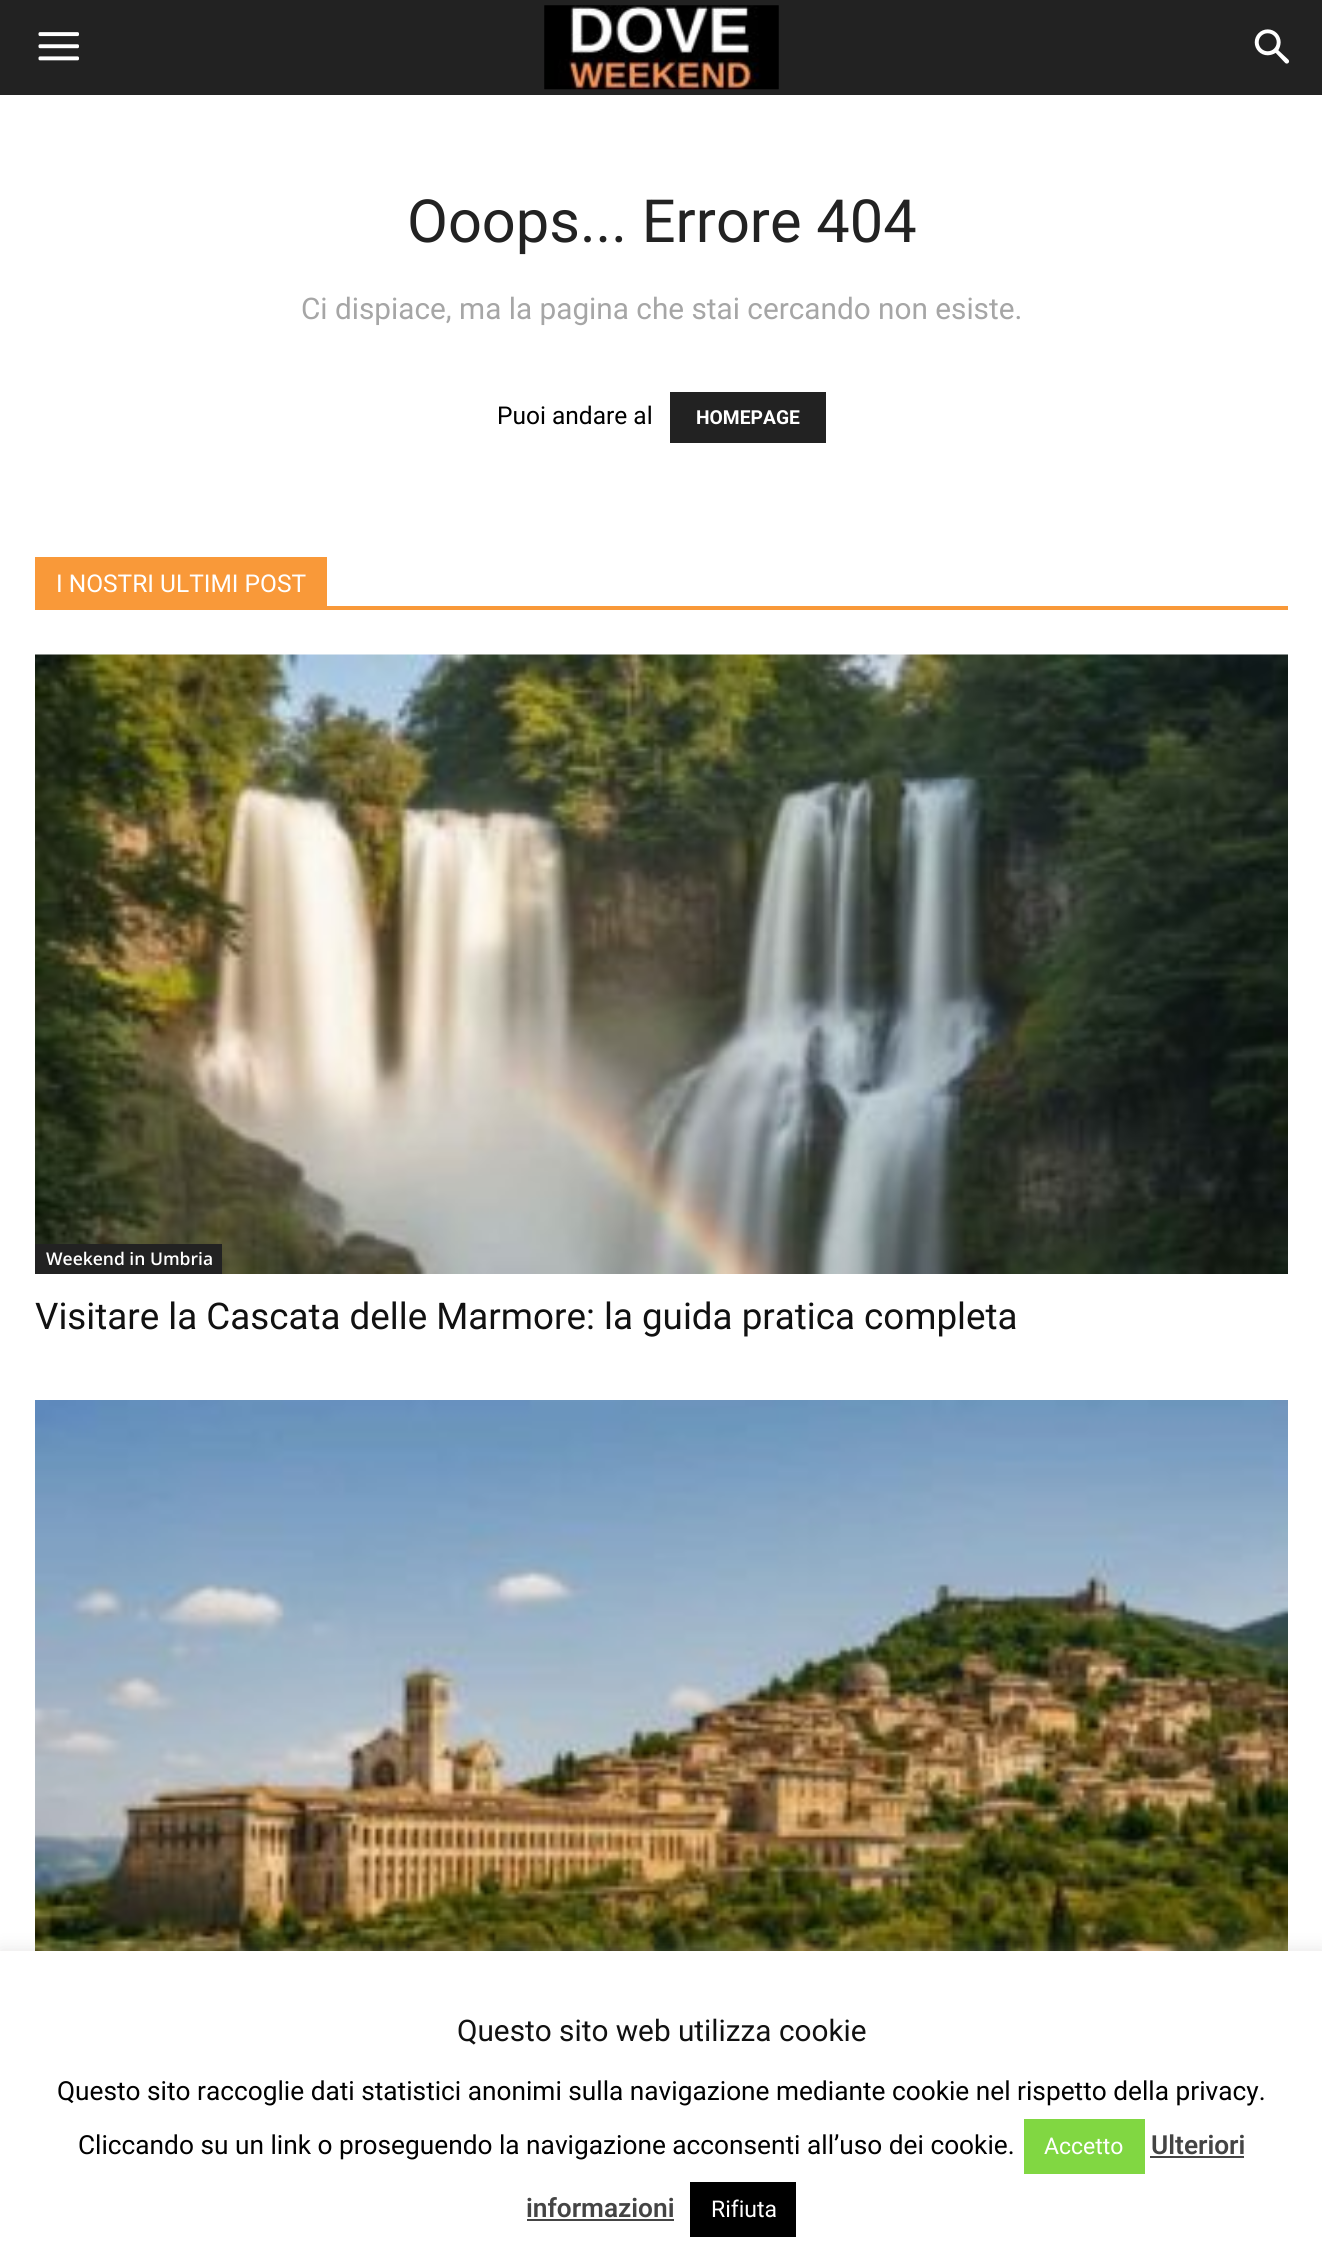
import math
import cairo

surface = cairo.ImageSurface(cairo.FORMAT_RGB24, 1322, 2256)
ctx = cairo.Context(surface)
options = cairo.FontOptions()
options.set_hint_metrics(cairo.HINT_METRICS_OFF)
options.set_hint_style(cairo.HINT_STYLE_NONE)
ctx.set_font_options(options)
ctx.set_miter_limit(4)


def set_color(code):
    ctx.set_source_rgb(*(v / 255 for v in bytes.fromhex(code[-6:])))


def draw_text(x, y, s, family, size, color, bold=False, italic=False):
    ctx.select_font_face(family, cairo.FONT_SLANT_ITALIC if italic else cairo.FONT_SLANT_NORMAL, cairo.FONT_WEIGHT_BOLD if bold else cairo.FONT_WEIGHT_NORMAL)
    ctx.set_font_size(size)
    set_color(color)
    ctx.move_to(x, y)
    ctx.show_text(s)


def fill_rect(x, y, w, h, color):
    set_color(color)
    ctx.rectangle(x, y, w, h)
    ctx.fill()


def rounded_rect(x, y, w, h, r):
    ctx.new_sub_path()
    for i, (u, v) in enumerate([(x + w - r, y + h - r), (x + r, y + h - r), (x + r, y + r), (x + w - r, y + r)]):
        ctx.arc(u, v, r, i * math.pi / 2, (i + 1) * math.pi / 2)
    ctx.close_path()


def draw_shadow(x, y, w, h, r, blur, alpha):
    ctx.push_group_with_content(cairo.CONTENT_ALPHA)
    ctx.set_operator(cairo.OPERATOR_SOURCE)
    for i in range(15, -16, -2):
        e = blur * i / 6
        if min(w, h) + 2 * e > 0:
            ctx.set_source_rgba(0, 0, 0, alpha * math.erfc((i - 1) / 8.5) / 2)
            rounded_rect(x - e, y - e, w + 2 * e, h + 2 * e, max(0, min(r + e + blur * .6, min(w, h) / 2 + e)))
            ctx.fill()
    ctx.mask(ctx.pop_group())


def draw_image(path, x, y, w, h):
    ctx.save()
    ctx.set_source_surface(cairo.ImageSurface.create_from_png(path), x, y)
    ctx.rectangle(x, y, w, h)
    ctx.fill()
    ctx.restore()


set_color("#ffffff")
ctx.paint()
fill_rect(0, 0, 1322, 95, "#222222")
draw_image("assets/img1.png", 38, 32, 41, 29)
draw_image("assets/img2.png", 544, 5, 235, 85)
draw_image("assets/img3.png", 1254, 29, 36, 35)
draw_text(407, 242, "Ooops... Errore 404", "Roboto", 59.5, "#222222")
draw_text(301, 319, "Ci dispiace, ma la pagina che stai cercando non esiste.", "Roboto", 29.75, "#a6a6a6")
draw_text(497, 424, "Puoi andare al", "Roboto", 24.5, "#000000")
fill_rect(670, 392, 156, 51, "#222222")
draw_text(696, 424, "HOMEPAGE", "Roboto", 19.25, "#ffffff", bold=True)
fill_rect(35, 606, 1253, 4, "#f99939")
fill_rect(35, 557, 292, 49, "#f99939")
draw_text(56, 592, "I NOSTRI ULTIMI POST", "Roboto", 24.5, "#ffffff")
draw_image("assets/img4.png", 35, 654, 1253, 620)
fill_rect(35, 1244, 187, 30, "#222222")
draw_text(46, 1265, "Weekend in Umbria", "Open Sans SemiBold", 17.5, "#ffffff")
draw_text(35, 1329, "Visitare la Cascata delle Marmore: la guida pratica completa", "Roboto", 36.75, "#111111")
draw_image("assets/img5.png", 35, 1400, 1253, 551)
set_color("#acabab")
draw_shadow(0, 1950, 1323, 306, 0, 9, 0.3)
fill_rect(0, 1951, 1322, 305, "#ffffff")
draw_text(457, 2041, "Questo sito web utilizza cookie", "Roboto", 29.75, "#111111")
draw_text(57, 2100, "Questo sito raccoglie dati statistici anonimi sulla navigazione mediante cookie nel rispetto della privacy.", "Roboto", 26.25, "#000000")
draw_text(78, 2154, "Cliccando su un link o proseguendo la navigazione acconsenti all’uso dei cookie.", "Roboto", 26.25, "#000000")
fill_rect(1024, 2119, 121, 55, "#81d742")
draw_text(1044, 2154, "Accetto", "Roboto", 23, "#ffffff")
draw_text(1151, 2154, "Ulteriori", "Roboto SemiBold", 26.25, "#444444")
fill_rect(1150, 2156, 94, 2, "#444444")
draw_text(526, 2217, "informazioni", "Roboto SemiBold", 26.25, "#444444")
fill_rect(527, 2219, 147, 2, "#444444")
fill_rect(690, 2182, 106, 55, "#000000")
draw_text(711, 2217, "Rifiuta", "Roboto", 23, "#ffffff")
surface.write_to_png("output.png")
